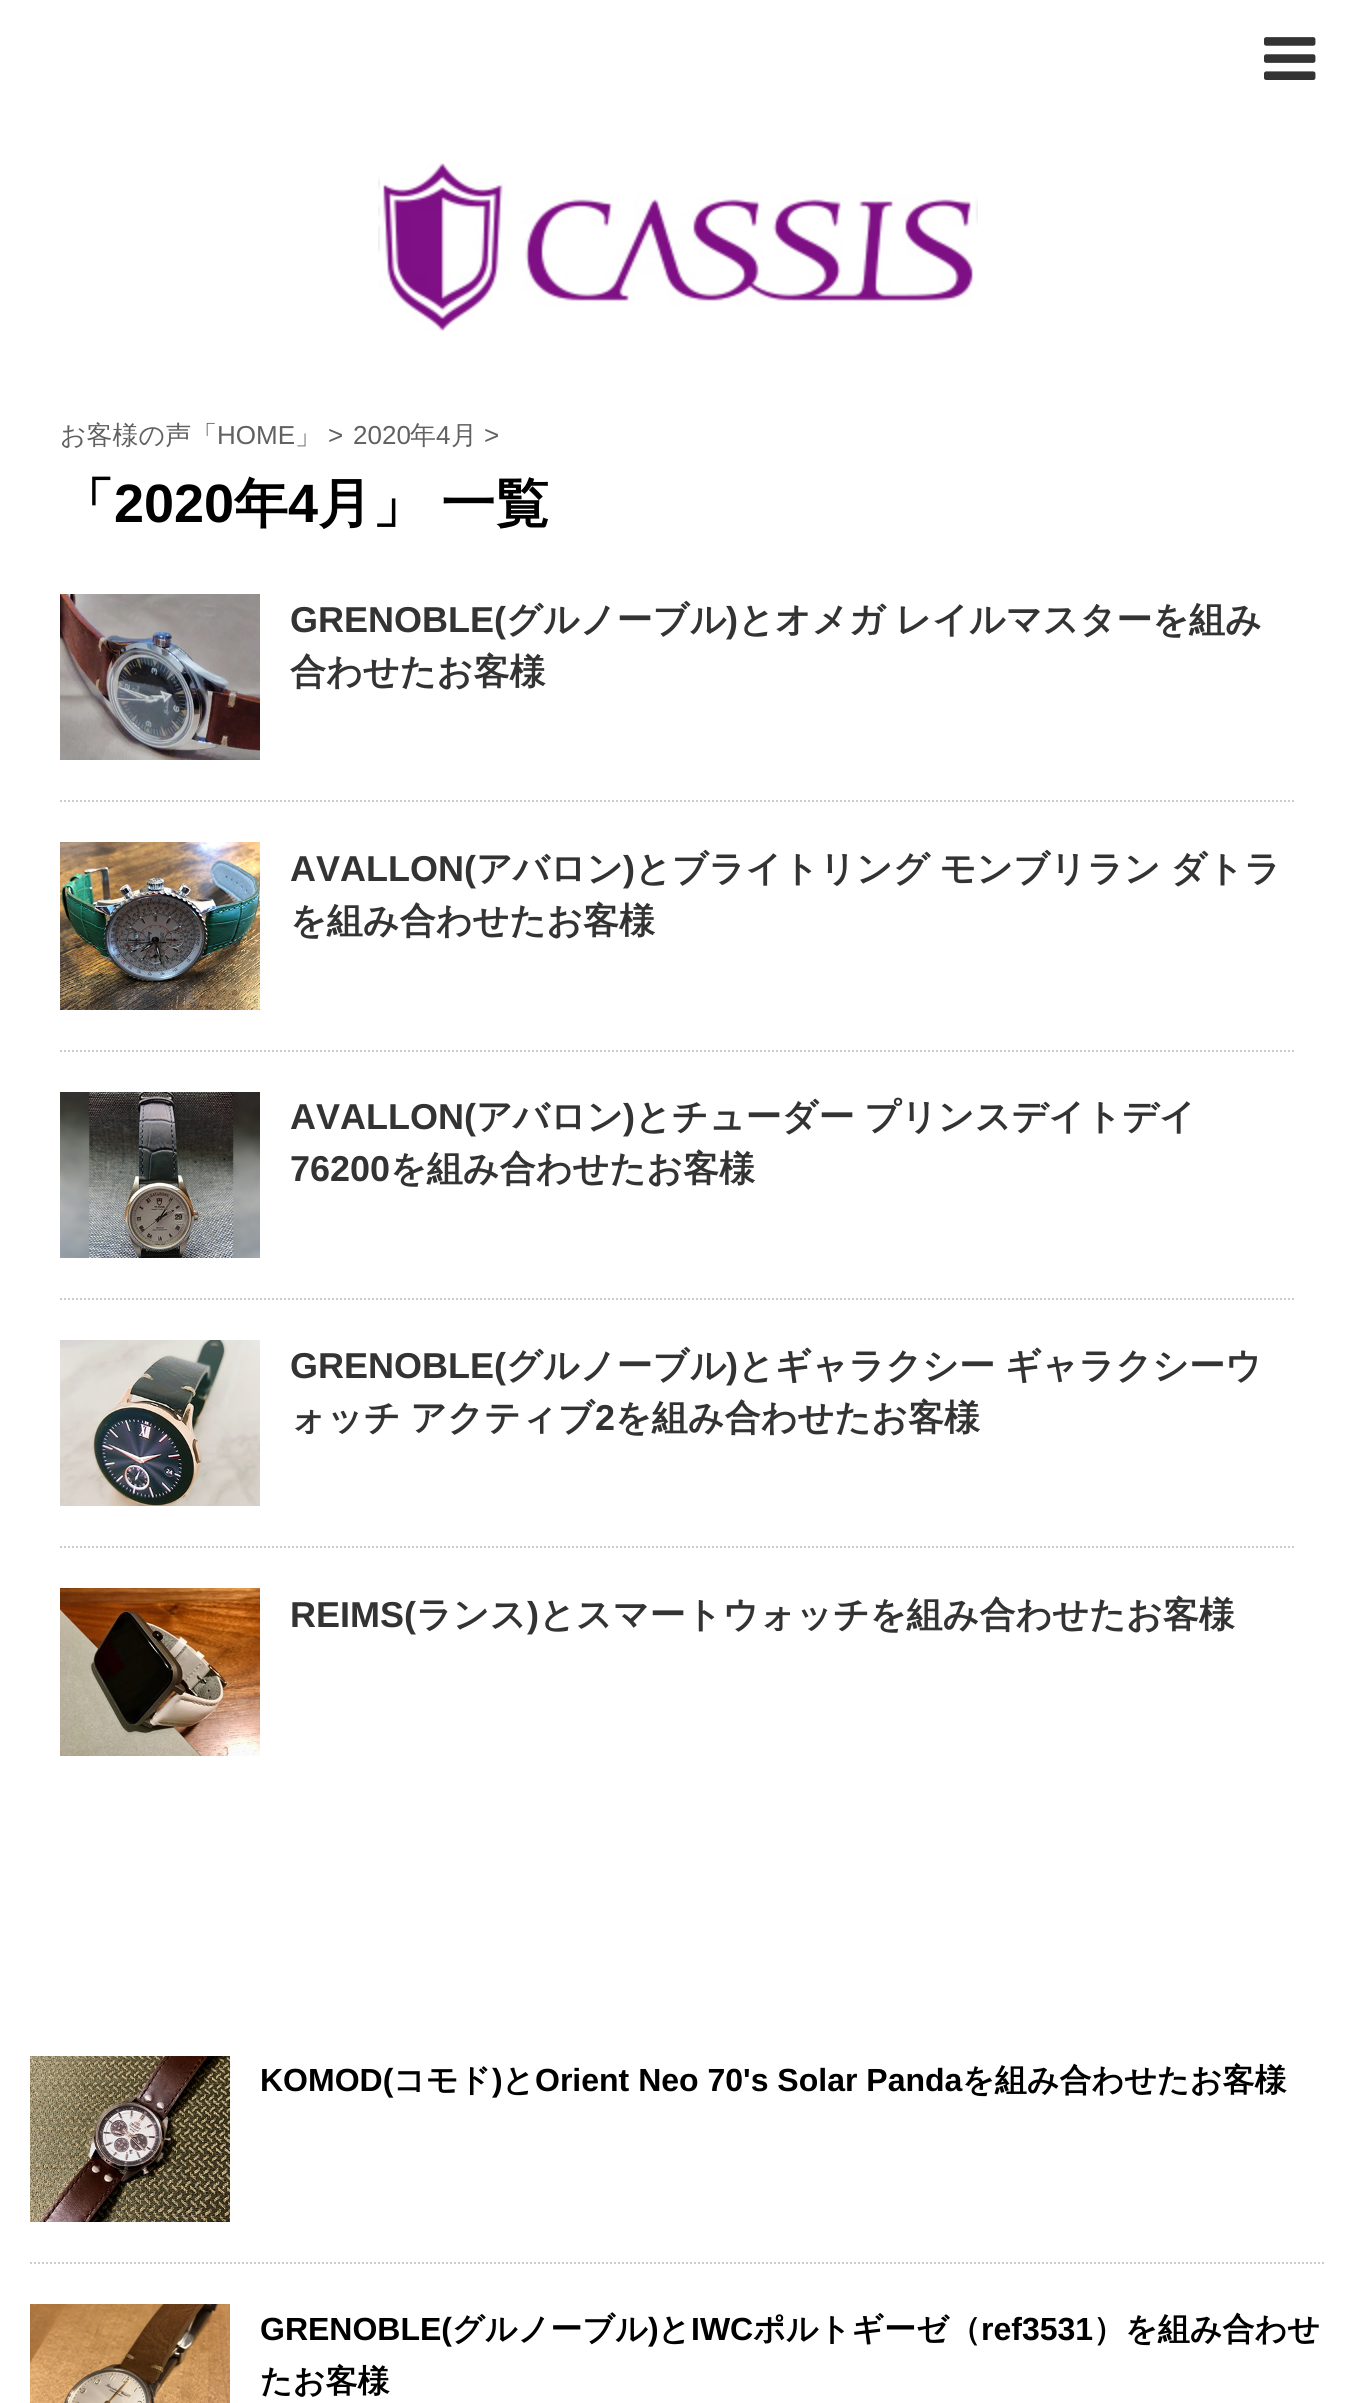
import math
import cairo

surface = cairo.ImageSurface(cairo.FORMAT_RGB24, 1355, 2403)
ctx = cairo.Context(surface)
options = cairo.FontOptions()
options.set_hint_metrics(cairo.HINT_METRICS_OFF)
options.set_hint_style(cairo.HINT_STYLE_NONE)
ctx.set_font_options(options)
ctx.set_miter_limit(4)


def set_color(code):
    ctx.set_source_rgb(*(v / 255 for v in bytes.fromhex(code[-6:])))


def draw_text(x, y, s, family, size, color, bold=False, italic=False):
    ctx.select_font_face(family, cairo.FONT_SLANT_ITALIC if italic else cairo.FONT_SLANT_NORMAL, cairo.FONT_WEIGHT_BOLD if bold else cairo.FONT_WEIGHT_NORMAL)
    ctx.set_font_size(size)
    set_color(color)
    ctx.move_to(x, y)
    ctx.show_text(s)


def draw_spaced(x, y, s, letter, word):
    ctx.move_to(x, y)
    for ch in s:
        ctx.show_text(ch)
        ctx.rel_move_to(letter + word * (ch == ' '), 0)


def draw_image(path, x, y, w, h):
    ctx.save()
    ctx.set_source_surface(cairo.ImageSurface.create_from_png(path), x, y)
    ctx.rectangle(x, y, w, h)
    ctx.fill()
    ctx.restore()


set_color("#ffffff")
ctx.paint()
draw_image("assets/img1.png", 1264, 37, 52, 43)
draw_image("assets/img2.png", 378, 163, 600, 168)
draw_text(60, 444, "お客様の声「", "WenQuanYi Zen Hei Medium", 26, "#616161")
draw_text(217, 444, "HOME", "Liberation Sans", 26, "#616161")
draw_text(295, 444, "」", "WenQuanYi Zen Hei Medium", 26, "#616161")
draw_text(328, 444, ">", "Liberation Sans", 26, "#616161")
draw_text(353, 444, "2020", "Liberation Sans", 26, "#616161")
draw_text(410, 444, "年", "WenQuanYi Zen Hei Medium", 26, "#616161")
draw_text(436, 444, "4", "Liberation Sans", 26, "#616161")
draw_text(451, 444, "月", "WenQuanYi Zen Hei Medium", 26, "#616161")
draw_text(484, 444, ">", "Liberation Sans", 26, "#616161")
draw_text(60, 522, "「", "WenQuanYi Zen Hei", 54, "#000000", bold=True)
draw_text(114, 522, "2020", "Liberation Sans", 54, "#000000", bold=True)
draw_text(234, 522, "年", "WenQuanYi Zen Hei", 54, "#000000", bold=True)
draw_text(288, 522, "4", "Liberation Sans", 54, "#000000", bold=True)
ctx.select_font_face("WenQuanYi Zen Hei", cairo.FONT_SLANT_NORMAL, cairo.FONT_WEIGHT_BOLD)
draw_spaced(318, 522, "月」 一覧", 0, -1)
ctx.new_path()
ctx.move_to(60, 801)
ctx.line_to(1296, 801)
set_color("#cccccc")
ctx.set_dash([2, 2])
ctx.stroke()
draw_image("assets/img3.png", 60, 594, 200, 166)
draw_text(290, 632, "GRENOBLE(", "Liberation Sans", 36, "#333333", bold=True)
draw_text(506, 632, "グルノーブル", "WenQuanYi Zen Hei", 36, "#333333", bold=True)
draw_text(726, 632, ")", "Liberation Sans", 36, "#333333", bold=True)
ctx.select_font_face("WenQuanYi Zen Hei", cairo.FONT_SLANT_NORMAL, cairo.FONT_WEIGHT_BOLD)
draw_spaced(738, 632, "とオメガ レイルマスターを組み", 0, -1)
draw_text(290, 684, "合わせたお客様", "WenQuanYi Zen Hei", 36, "#333333", bold=True)
ctx.new_path()
ctx.move_to(60, 1051)
ctx.line_to(1296, 1051)
set_color("#cccccc")
ctx.stroke()
draw_image("assets/img4.png", 60, 842, 200, 168)
draw_text(290, 881, "AVALLON(", "Liberation Sans", 36, "#333333", bold=True)
draw_text(476, 881, "アバロン", "WenQuanYi Zen Hei", 36, "#333333", bold=True)
draw_text(623, 881, ")", "Liberation Sans", 36, "#333333", bold=True)
ctx.select_font_face("WenQuanYi Zen Hei", cairo.FONT_SLANT_NORMAL, cairo.FONT_WEIGHT_BOLD)
draw_spaced(635, 881, "とブライトリング モンブリラン ダトラ", 0, -1)
draw_text(290, 933, "を組み合わせたお客様", "WenQuanYi Zen Hei", 36, "#333333", bold=True)
ctx.new_path()
ctx.move_to(60, 1299)
ctx.line_to(1296, 1299)
set_color("#cccccc")
ctx.stroke()
draw_image("assets/img5.png", 60, 1092, 200, 166)
draw_text(290, 1129, "AVALLON(", "Liberation Sans", 36, "#333333", bold=True)
draw_text(476, 1129, "アバロン", "WenQuanYi Zen Hei", 36, "#333333", bold=True)
draw_text(623, 1129, ")", "Liberation Sans", 36, "#333333", bold=True)
ctx.select_font_face("WenQuanYi Zen Hei", cairo.FONT_SLANT_NORMAL, cairo.FONT_WEIGHT_BOLD)
draw_spaced(635, 1129, "とチューダー プリンスデイトデイ", 0, -1)
draw_text(290, 1181, "76200", "Liberation Sans", 36, "#333333", bold=True)
draw_text(390, 1181, "を組み合わせたお客様", "WenQuanYi Zen Hei", 36, "#333333", bold=True)
ctx.new_path()
ctx.move_to(60, 1547)
ctx.line_to(1296, 1547)
set_color("#cccccc")
ctx.stroke()
draw_image("assets/img6.png", 60, 1340, 200, 166)
draw_text(290, 1378, "GRENOBLE(", "Liberation Sans", 36, "#333333", bold=True)
draw_text(506, 1378, "グルノーブル", "WenQuanYi Zen Hei", 36, "#333333", bold=True)
draw_text(726, 1378, ")", "Liberation Sans", 36, "#333333", bold=True)
ctx.select_font_face("WenQuanYi Zen Hei", cairo.FONT_SLANT_NORMAL, cairo.FONT_WEIGHT_BOLD)
draw_spaced(738, 1378, "とギャラクシー ギャラクシーウ", 0, -1)
draw_spaced(290, 1430, "ォッチ アクティブ", 0, -1)
draw_text(595, 1430, "2", "Liberation Sans", 36, "#333333", bold=True)
draw_text(615, 1430, "を組み合わせたお客様", "WenQuanYi Zen Hei", 36, "#333333", bold=True)
draw_image("assets/img7.png", 60, 1588, 200, 168)
draw_text(290, 1627, "REIMS(", "Liberation Sans", 36, "#333333", bold=True)
draw_text(416, 1627, "ランス", "WenQuanYi Zen Hei", 36, "#333333", bold=True)
draw_text(527, 1627, ")", "Liberation Sans", 36, "#333333", bold=True)
draw_text(539, 1627, "とスマートウォッチを組み合わせたお客様", "WenQuanYi Zen Hei", 36, "#333333", bold=True)
ctx.new_path()
ctx.move_to(30, 2263)
ctx.line_to(1326, 2263)
set_color("#cccccc")
ctx.stroke()
draw_image("assets/img8.png", 30, 2056, 200, 166)
draw_text(260, 2091, "KOMOD(", "Liberation Sans", 32, "#000000", bold=True)
draw_text(393, 2091, "コモド", "WenQuanYi Zen Hei", 32, "#000000", bold=True)
draw_text(492, 2091, ")", "Liberation Sans", 32, "#000000", bold=True)
draw_text(502, 2091, "と", "WenQuanYi Zen Hei", 32, "#000000", bold=True)
draw_text(535, 2091, "Orient Neo 70's Solar Panda", "Liberation Sans", 32, "#000000", bold=True)
draw_text(962, 2091, "を組み合わせたお客様", "WenQuanYi Zen Hei", 32, "#000000", bold=True)
draw_image("assets/img9.png", 30, 2304, 200, 99)
draw_text(260, 2340, "GRENOBLE(", "Liberation Sans", 32, "#000000", bold=True)
draw_text(452, 2340, "グルノーブル", "WenQuanYi Zen Hei", 32, "#000000", bold=True)
draw_text(648, 2340, ")", "Liberation Sans", 32, "#000000", bold=True)
draw_text(658, 2340, "と", "WenQuanYi Zen Hei", 32, "#000000", bold=True)
draw_text(691, 2340, "IWC", "Liberation Sans", 32, "#000000", bold=True)
draw_text(753, 2340, "ポルトギーゼ（", "WenQuanYi Zen Hei", 32, "#000000", bold=True)
draw_text(981, 2340, "ref3531", "Liberation Sans", 32, "#000000", bold=True)
draw_text(1093, 2340, "）を組み合わせ", "WenQuanYi Zen Hei", 32, "#000000", bold=True)
draw_text(260, 2392, "たお客様", "WenQuanYi Zen Hei", 32, "#000000", bold=True)
surface.write_to_png("output.png")
